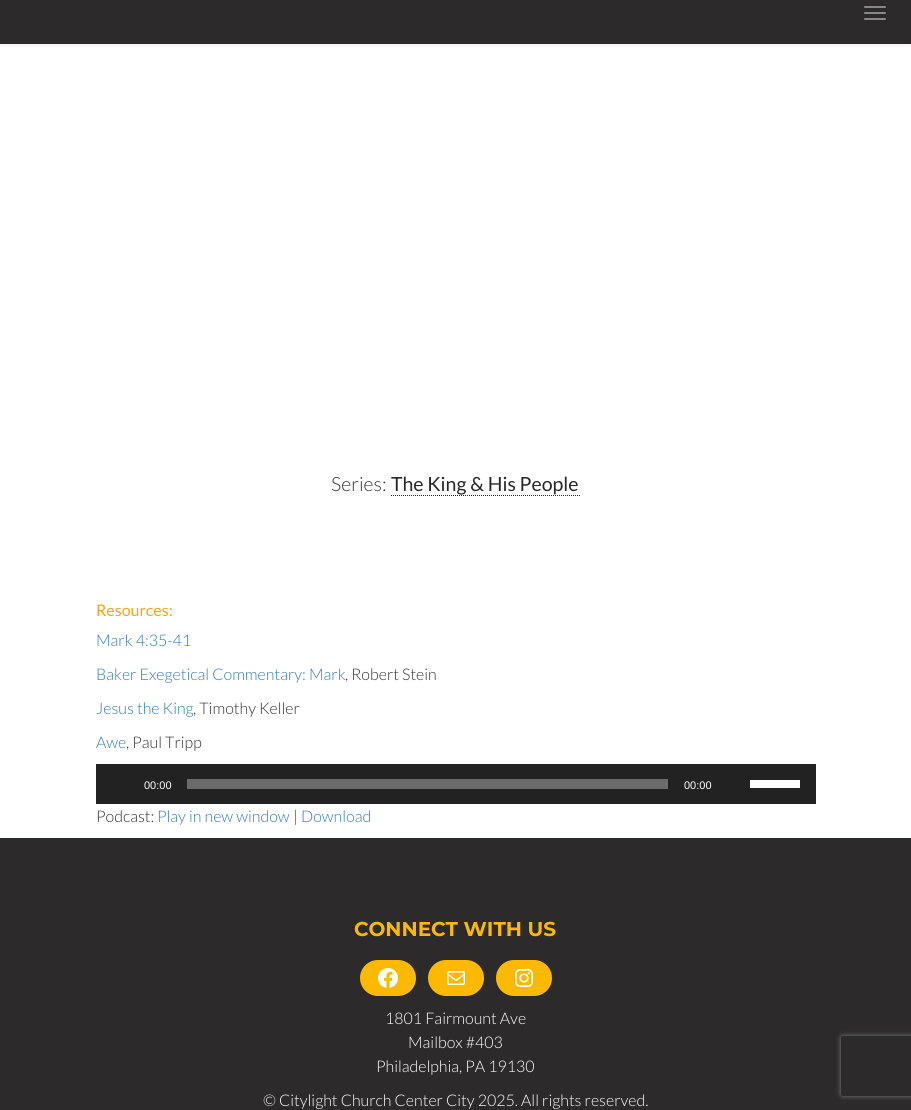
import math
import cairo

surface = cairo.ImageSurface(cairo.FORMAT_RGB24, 911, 1110)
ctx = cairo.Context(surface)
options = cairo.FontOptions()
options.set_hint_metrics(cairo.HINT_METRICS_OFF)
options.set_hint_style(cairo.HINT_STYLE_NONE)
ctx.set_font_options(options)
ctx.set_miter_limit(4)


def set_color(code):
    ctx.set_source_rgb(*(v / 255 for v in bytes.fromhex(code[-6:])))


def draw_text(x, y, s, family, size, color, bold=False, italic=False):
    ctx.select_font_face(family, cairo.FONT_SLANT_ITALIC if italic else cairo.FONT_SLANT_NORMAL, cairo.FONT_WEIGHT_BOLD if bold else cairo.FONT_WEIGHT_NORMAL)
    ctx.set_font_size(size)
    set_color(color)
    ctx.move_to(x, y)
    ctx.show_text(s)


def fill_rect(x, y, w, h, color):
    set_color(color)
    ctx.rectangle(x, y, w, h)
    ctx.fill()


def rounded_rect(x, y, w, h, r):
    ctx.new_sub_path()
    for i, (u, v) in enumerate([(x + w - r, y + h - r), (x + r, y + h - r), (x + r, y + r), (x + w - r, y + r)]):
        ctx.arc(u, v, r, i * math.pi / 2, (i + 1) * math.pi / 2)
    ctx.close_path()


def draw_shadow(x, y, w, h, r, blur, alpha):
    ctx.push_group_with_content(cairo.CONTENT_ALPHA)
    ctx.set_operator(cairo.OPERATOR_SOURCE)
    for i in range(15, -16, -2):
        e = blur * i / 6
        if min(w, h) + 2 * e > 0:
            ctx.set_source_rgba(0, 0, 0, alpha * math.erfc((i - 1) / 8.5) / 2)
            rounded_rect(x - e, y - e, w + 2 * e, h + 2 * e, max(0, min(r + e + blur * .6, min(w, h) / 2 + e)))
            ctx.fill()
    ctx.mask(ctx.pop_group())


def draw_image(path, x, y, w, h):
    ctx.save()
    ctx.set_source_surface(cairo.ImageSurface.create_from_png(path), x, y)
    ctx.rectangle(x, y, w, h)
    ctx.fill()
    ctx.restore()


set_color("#ffffff")
ctx.paint()
set_color("#000000")
draw_shadow(0, -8, 911, 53, 0, 2.5, 0.07)
fill_rect(0, 0, 911, 44, "#2c2a2b")
set_color("#888888")
rounded_rect(864, 6, 22, 2, 1)
ctx.fill()
rounded_rect(864, 12, 22, 2, 1)
ctx.fill()
rounded_rect(864, 18, 22, 2, 1)
ctx.fill()
draw_text(331, 491, "Series:", "Lato Light", 19.5, "#333333")
draw_text(391, 491, "The King & His People", "Lato", 19.5, "#272727")
ctx.new_path()
ctx.move_to(391, 495.5)
ctx.line_to(580, 495.5)
ctx.set_line_width(1)
ctx.set_dash([1, 1])
ctx.stroke()
draw_text(96, 616, "Resources:", "Lato", 16, "#f7a61b")
draw_text(96, 646, "Mark 4:35-41", "Lato Light", 16, "#337ab7")
draw_text(96, 680, "Baker Exegetical Commentary: Mark", "Lato Light", 16, "#337ab7")
draw_text(345, 680, ", Robert Stein", "Lato Light", 16, "#333333")
draw_text(96, 714, "Jesus the King", "Lato Light", 16, "#337ab7")
draw_text(193, 714, ", Timothy Keller", "Lato Light", 16, "#333333")
draw_text(96, 748, "Awe", "Lato Light", 16, "#337ab7")
draw_text(126, 748, ", Paul Tripp", "Lato Light", 16, "#333333")
fill_rect(96, 764, 720, 40, "#222222")
draw_text(144, 789, "00:00", "Liberation Sans", 11, "#ffffff")
fill_rect(187, 779, 481, 10, "#6b6b6b")
draw_text(684, 789, "00:00", "Liberation Sans", 11, "#ffffff")
fill_rect(750, 780, 50, 8, "#ffffff")
draw_text(96, 822, "Podcast:", "Lato Light", 16, "#333333")
draw_text(157, 822, "Play in new window", "Lato Light", 16, "#337ab7")
draw_text(293, 822, "|", "Lato Light", 16, "#333333")
draw_text(301, 822, "Download", "Lato Light", 16, "#337ab7")
fill_rect(0, 838, 911, 272, "#2c2a2b")
draw_text(354, 936, "CONNECT WITH US", "Montserrat", 20, "#fcb900", bold=True)
rounded_rect(360, 960, 56, 36, 18)
ctx.fill()
draw_image("assets/img1.png", 378, 968, 20, 20)
rounded_rect(428, 960, 56, 36, 18)
ctx.fill()
draw_image("assets/img2.png", 447, 971, 18, 14)
rounded_rect(496, 960, 56, 36, 18)
ctx.fill()
draw_image("assets/img3.png", 515, 969, 18, 18)
draw_text(385, 1024, "1801 Fairmount Ave", "Lato Light", 16, "#ffffff")
draw_text(408, 1048, "Mailbox #403", "Lato Light", 16, "#ffffff")
draw_text(376, 1072, "Philadelphia, PA 19130", "Lato Light", 16, "#ffffff")
draw_text(263, 1106, "© Citylight Church Center City 2025. All rights reserved.", "Lato Light", 16, "#ffffff")
ctx.save()
ctx.set_fill_rule(cairo.FILL_RULE_EVEN_ODD)
ctx.new_path()
ctx.move_to(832, 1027)
ctx.line_to(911, 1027)
ctx.line_to(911, 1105)
ctx.line_to(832, 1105)
ctx.close_path()
ctx.move_to(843, 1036)
ctx.line_to(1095, 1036)
ctx.curve_to(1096, 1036, 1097, 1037, 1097, 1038)
ctx.line_to(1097, 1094)
ctx.curve_to(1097, 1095, 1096, 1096, 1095, 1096)
ctx.line_to(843, 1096)
ctx.curve_to(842, 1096, 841, 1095, 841, 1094)
ctx.line_to(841, 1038)
ctx.curve_to(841, 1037, 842, 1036, 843, 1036)
ctx.close_path()
ctx.clip()
set_color("#808080")
draw_shadow(841, 1036, 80, 60, 2, 2.5, 1)
ctx.restore()
surface.write_to_png("output.png")
